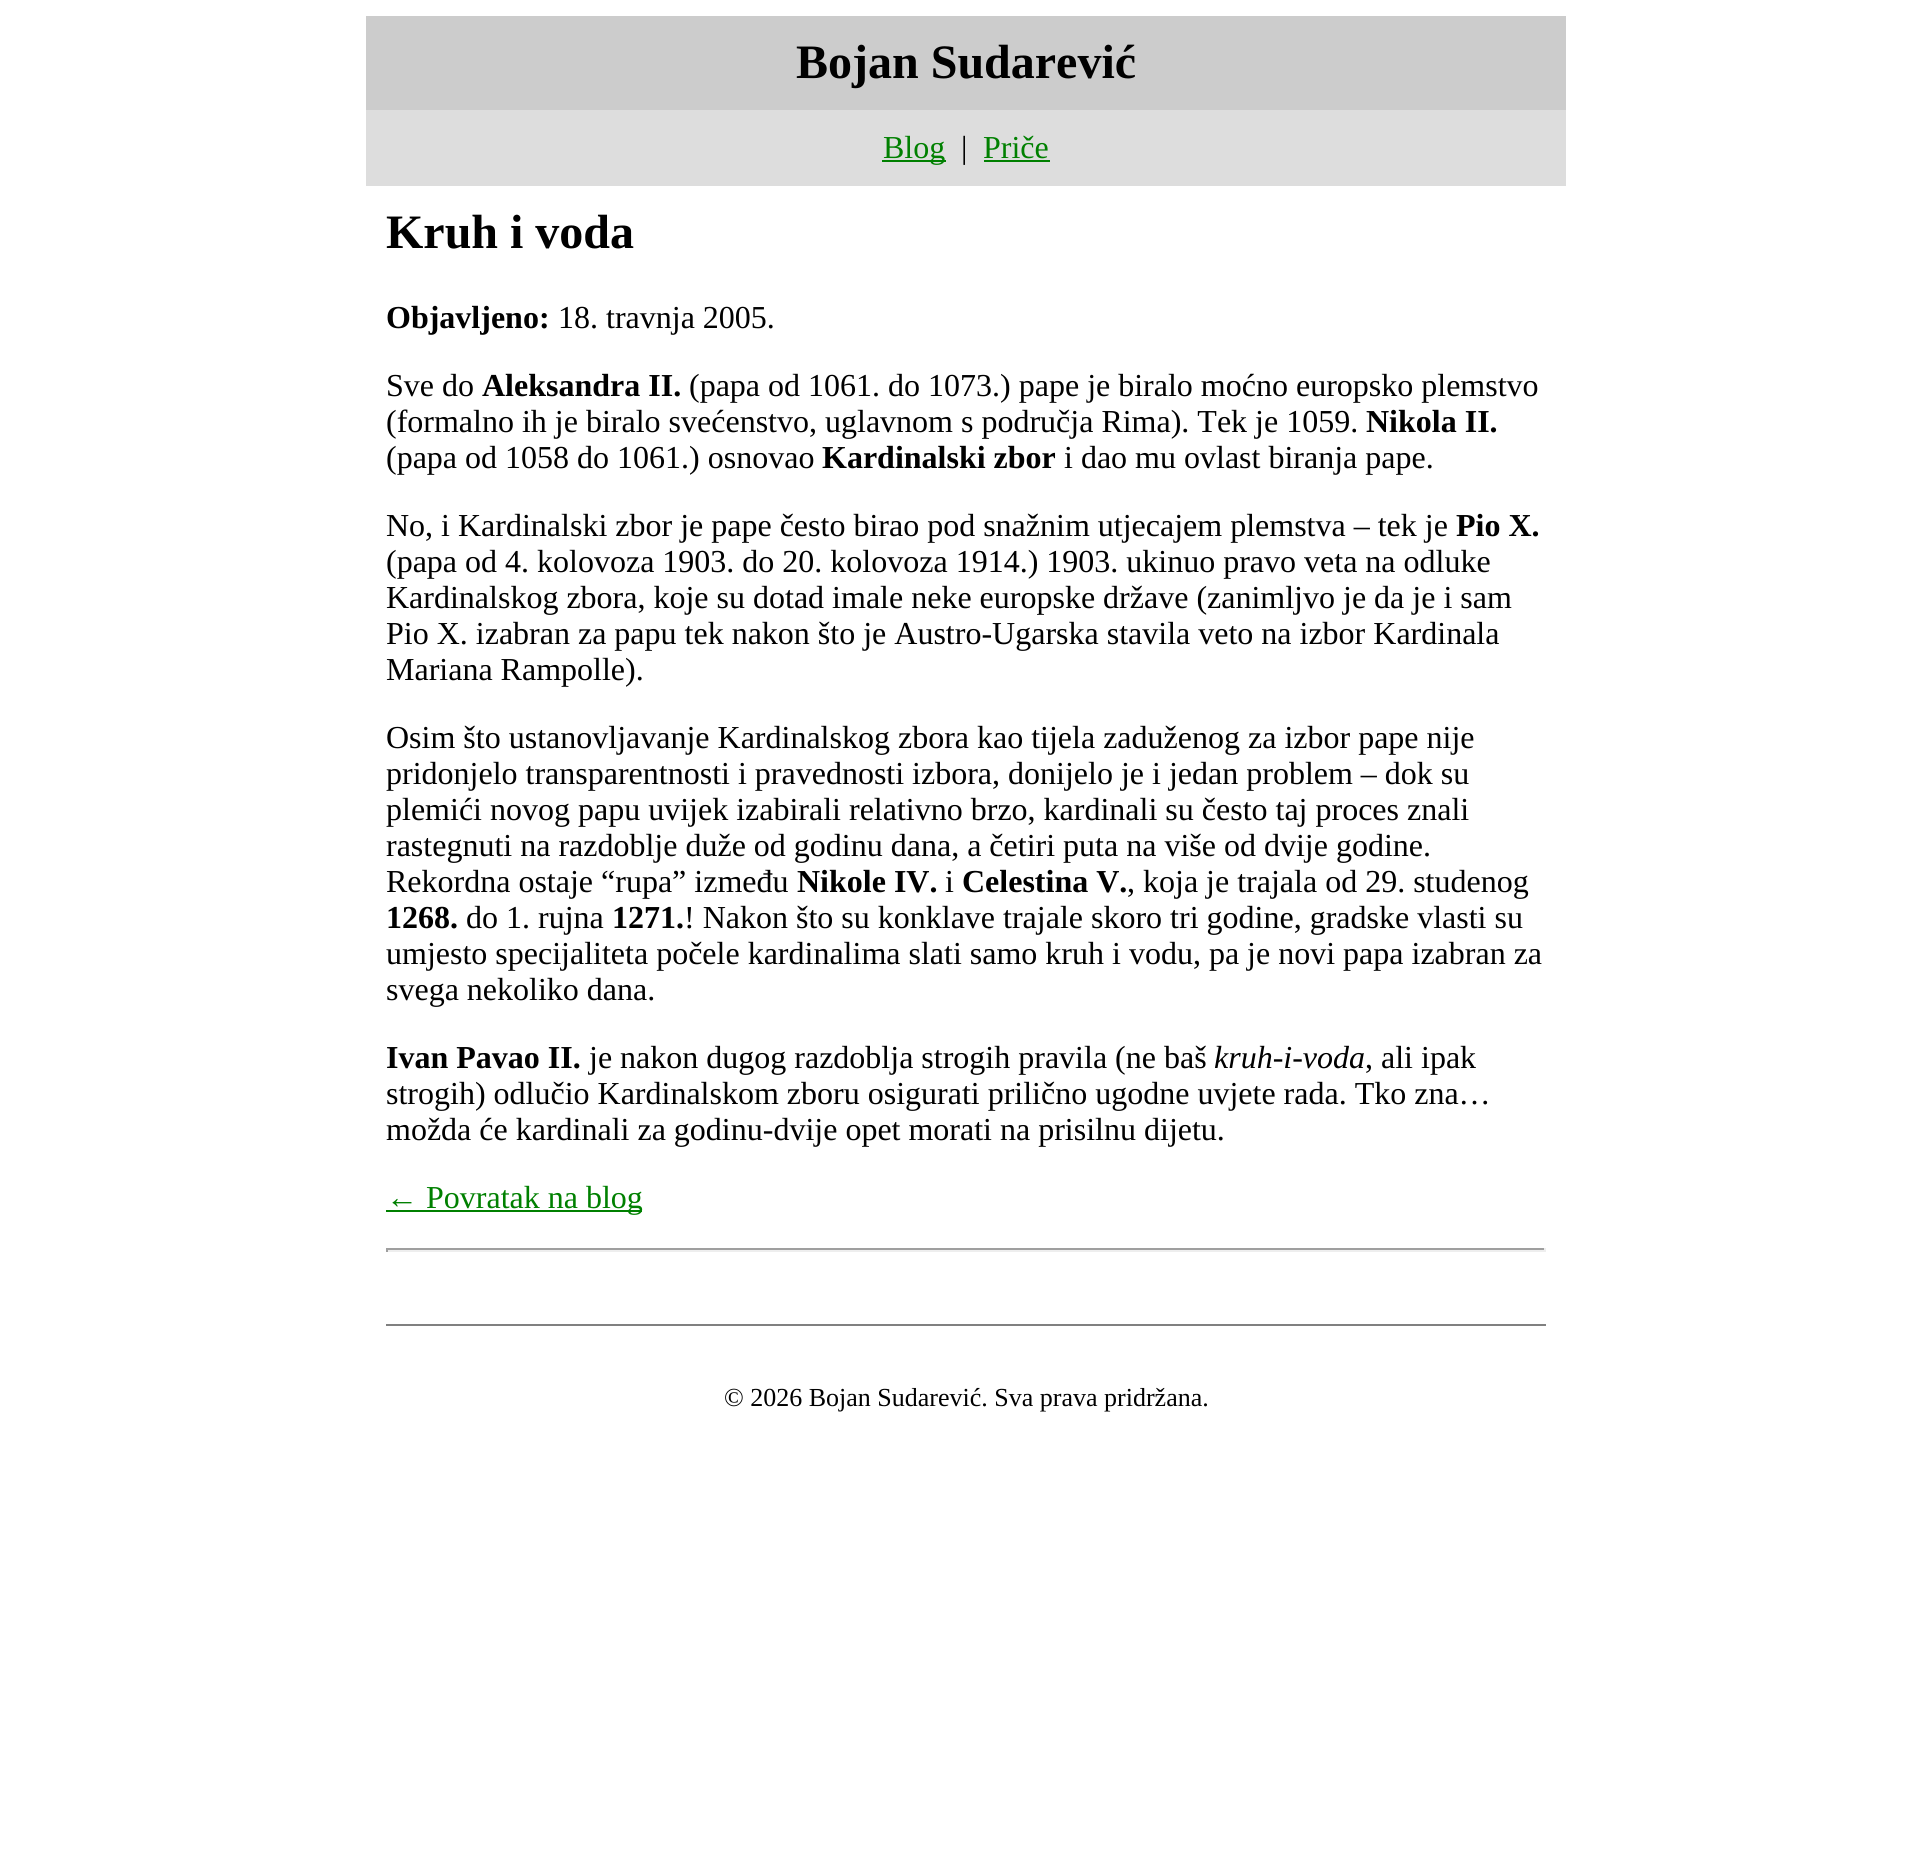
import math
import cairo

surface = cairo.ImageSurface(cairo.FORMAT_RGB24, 1931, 1849)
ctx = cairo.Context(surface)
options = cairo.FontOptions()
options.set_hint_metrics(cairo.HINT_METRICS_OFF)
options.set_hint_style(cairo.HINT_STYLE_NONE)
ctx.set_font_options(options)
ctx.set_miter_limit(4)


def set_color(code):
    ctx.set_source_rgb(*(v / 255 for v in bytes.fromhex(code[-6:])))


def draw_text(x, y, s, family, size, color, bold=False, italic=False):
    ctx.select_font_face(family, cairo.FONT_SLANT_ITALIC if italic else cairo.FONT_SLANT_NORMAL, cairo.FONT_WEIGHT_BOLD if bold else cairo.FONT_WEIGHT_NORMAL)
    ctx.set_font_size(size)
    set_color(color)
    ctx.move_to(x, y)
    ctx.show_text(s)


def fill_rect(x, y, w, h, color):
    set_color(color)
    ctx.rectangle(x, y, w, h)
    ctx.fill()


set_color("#ffffff")
ctx.paint()
fill_rect(366, 16, 1200, 94, "#cccccc")
draw_text(796, 78, "Bojan Sudarević", "Liberation Serif", 48, "#000000", bold=True)
fill_rect(366, 110, 1200, 76, "#dddddd")
fill_rect(882, 160, 64, 2, "#008000")
draw_text(883, 158, "Blog", "Liberation Serif", 32, "#008000")
draw_text(961, 158, "|", "Liberation Serif", 32, "#000000")
draw_text(983, 158, "Priče", "Liberation Serif", 32, "#008000")
fill_rect(984, 160, 66, 2, "#008000")
draw_text(386, 248, "Kruh i voda", "Liberation Serif", 48, "#000000", bold=True)
draw_text(386, 328, "Objavljeno:", "Liberation Serif", 32, "#000000", bold=True)
draw_text(558, 328, "18. travnja 2005.", "Liberation Serif", 32, "#000000")
draw_text(386, 396, "Sve do", "Liberation Serif", 32, "#000000")
draw_text(482, 396, "Aleksandra II.", "Liberation Serif", 32, "#000000", bold=True)
draw_text(689, 396, "(papa od 1061. do 1073.) pape je biralo moćno europsko plemstvo", "Liberation Serif", 32, "#000000")
draw_text(386, 432, "(formalno ih je biralo svećenstvo, uglavnom s područja Rima). Tek je 1059.", "Liberation Serif", 32, "#000000")
draw_text(1366, 432, "Nikola II.", "Liberation Serif", 32, "#000000", bold=True)
draw_text(386, 468, "(papa od 1058 do 1061.) osnovao", "Liberation Serif", 32, "#000000")
draw_text(822, 468, "Kardinalski zbor", "Liberation Serif", 32, "#000000", bold=True)
draw_text(1064, 468, "i dao mu ovlast biranja pape.", "Liberation Serif", 32, "#000000")
draw_text(386, 536, "No, i Kardinalski zbor je pape često birao pod snažnim utjecajem plemstva – tek je", "Liberation Serif", 32, "#000000")
draw_text(1456, 536, "Pio X.", "Liberation Serif", 32, "#000000", bold=True)
draw_text(386, 572, "(papa od 4. kolovoza 1903. do 20. kolovoza 1914.) 1903. ukinuo pravo veta na odluke", "Liberation Serif", 32, "#000000")
draw_text(386, 608, "Kardinalskog zbora, koje su dotad imale neke europske države (zanimljvo je da je i sam", "Liberation Serif", 32, "#000000")
draw_text(386, 644, "Pio X. izabran za papu tek nakon što je Austro-Ugarska stavila veto na izbor Kardinala", "Liberation Serif", 32, "#000000")
draw_text(386, 680, "Mariana Rampolle).", "Liberation Serif", 32, "#000000")
draw_text(386, 748, "Osim što ustanovljavanje Kardinalskog zbora kao tijela zaduženog za izbor pape nije", "Liberation Serif", 32, "#000000")
draw_text(386, 784, "pridonjelo transparentnosti i pravednosti izbora, donijelo je i jedan problem – dok su", "Liberation Serif", 32, "#000000")
draw_text(386, 820, "plemići novog papu uvijek izabirali relativno brzo, kardinali su često taj proces znali", "Liberation Serif", 32, "#000000")
draw_text(386, 856, "rastegnuti na razdoblje duže od godinu dana, a četiri puta na više od dvije godine.", "Liberation Serif", 32, "#000000")
draw_text(386, 892, "Rekordna ostaje “rupa” između", "Liberation Serif", 32, "#000000")
draw_text(797, 892, "Nikole IV.", "Liberation Serif", 32, "#000000", bold=True)
draw_text(945, 892, "i", "Liberation Serif", 32, "#000000")
draw_text(962, 892, "Celestina V.", "Liberation Serif", 32, "#000000", bold=True)
draw_text(1127, 892, ", koja je trajala od 29. studenog", "Liberation Serif", 32, "#000000")
draw_text(386, 928, "1268.", "Liberation Serif", 32, "#000000", bold=True)
draw_text(466, 928, "do 1. rujna", "Liberation Serif", 32, "#000000")
draw_text(612, 928, "1271.", "Liberation Serif", 32, "#000000", bold=True)
draw_text(684, 928, "! Nakon što su konklave trajale skoro tri godine, gradske vlasti su", "Liberation Serif", 32, "#000000")
draw_text(386, 964, "umjesto specijaliteta počele kardinalima slati samo kruh i vodu, pa je novi papa izabran za", "Liberation Serif", 32, "#000000")
draw_text(386, 1000, "svega nekoliko dana.", "Liberation Serif", 32, "#000000")
draw_text(386, 1068, "Ivan Pavao II.", "Liberation Serif", 32, "#000000", bold=True)
draw_text(589, 1068, "je nakon dugog razdoblja strogih pravila (ne baš", "Liberation Serif", 32, "#000000")
draw_text(1214, 1068, "kruh-i-voda", "Liberation Serif", 32, "#000000", italic=True)
draw_text(1365, 1068, ", ali ipak", "Liberation Serif", 32, "#000000")
draw_text(386, 1104, "strogih) odlučio Kardinalskom zboru osigurati prilično ugodne uvjete rada. Tko zna…", "Liberation Serif", 32, "#000000")
draw_text(386, 1140, "možda će kardinali za godinu-dvije opet morati na prisilnu dijetu.", "Liberation Serif", 32, "#000000")
fill_rect(386, 1210, 256, 2, "#008000")
draw_text(386, 1208, "← Povratak na blog", "Liberation Serif", 32, "#008000")
fill_rect(386, 1248, 1160, 2, "#9f9f9f")
fill_rect(1544, 1248, 2, 4, "#eeeeee")
fill_rect(386, 1250, 1160, 2, "#eeeeee")
fill_rect(386, 1248, 2, 4, "#9f9f9f")
fill_rect(386, 1324, 1160, 2, "#808080")
draw_text(724, 1406, "© 2026 Bojan Sudarević. Sva prava pridržana.", "Liberation Serif", 26, "#000000")
surface.write_to_png("output.png")
